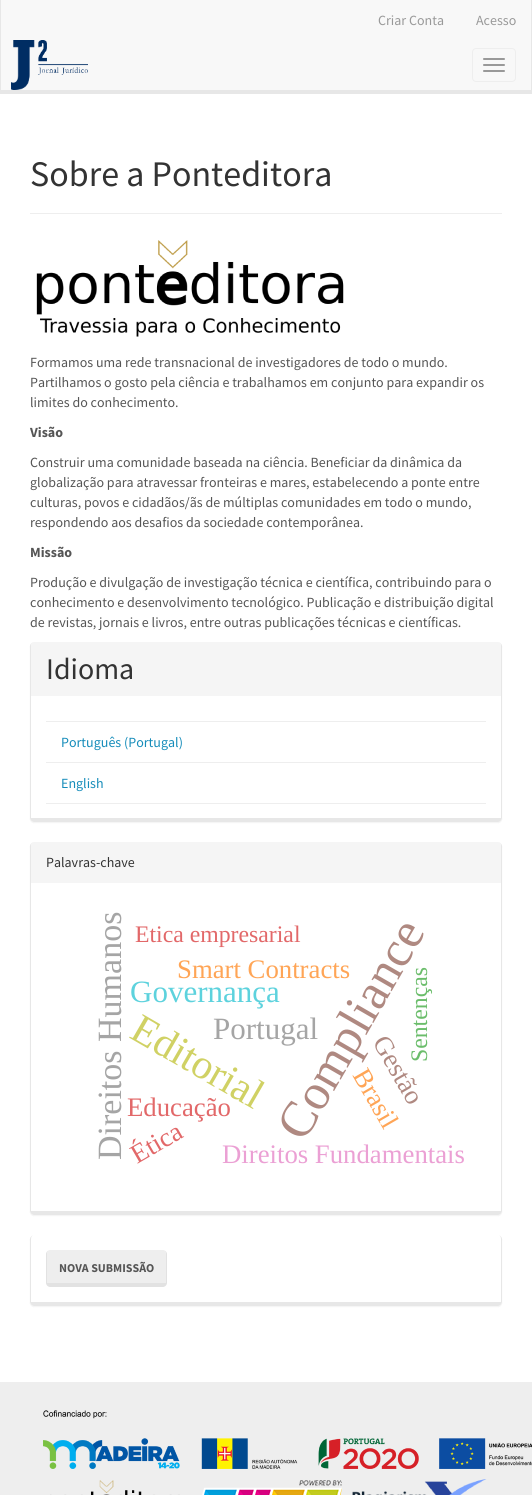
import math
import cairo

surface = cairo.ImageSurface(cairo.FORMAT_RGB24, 532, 1495)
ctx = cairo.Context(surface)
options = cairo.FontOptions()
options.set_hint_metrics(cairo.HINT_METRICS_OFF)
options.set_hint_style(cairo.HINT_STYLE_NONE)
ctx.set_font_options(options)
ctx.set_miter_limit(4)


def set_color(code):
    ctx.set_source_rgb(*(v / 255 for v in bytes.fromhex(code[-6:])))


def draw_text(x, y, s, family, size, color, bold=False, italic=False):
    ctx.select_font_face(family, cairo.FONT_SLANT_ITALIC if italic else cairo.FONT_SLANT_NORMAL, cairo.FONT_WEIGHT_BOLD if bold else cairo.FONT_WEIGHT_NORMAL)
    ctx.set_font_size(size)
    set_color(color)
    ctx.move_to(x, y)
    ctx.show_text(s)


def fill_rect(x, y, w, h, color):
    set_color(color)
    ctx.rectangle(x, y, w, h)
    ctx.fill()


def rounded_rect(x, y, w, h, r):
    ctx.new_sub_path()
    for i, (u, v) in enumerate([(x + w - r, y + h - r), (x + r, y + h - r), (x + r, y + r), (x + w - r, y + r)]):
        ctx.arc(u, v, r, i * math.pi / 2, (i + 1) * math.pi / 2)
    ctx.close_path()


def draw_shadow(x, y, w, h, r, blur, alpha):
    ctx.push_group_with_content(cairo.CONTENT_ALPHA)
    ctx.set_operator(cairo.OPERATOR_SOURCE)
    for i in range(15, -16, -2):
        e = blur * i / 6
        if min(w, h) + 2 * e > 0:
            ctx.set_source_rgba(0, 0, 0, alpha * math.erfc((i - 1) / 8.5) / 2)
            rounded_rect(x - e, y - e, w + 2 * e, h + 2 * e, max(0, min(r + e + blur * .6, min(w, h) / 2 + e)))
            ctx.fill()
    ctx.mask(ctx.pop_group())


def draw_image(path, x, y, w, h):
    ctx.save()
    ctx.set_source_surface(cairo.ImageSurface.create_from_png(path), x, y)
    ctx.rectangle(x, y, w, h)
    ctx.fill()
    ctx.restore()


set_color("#ffffff")
ctx.paint()
fill_rect(1, 0, 530, 90, "#f8f8f8")
fill_rect(531, 0, 1, 94, "#e7e7e7")
fill_rect(0, 90, 532, 4, "#e7e7e7")
fill_rect(0, 0, 1, 94, "#e7e7e7")
draw_text(378, 25, "Criar Conta", "Source Sans Pro", 14, "#999999")
draw_text(476, 25, "Acesso", "Source Sans Pro", 14, "#999999")
draw_image("assets/img1.png", 11, 40, 77, 50)
rounded_rect(472.5, 48.5, 43, 33, 3.5)
set_color("#eeeeee")
ctx.set_line_width(1)
ctx.stroke()
set_color("#999999")
rounded_rect(483, 58, 22, 2, 1)
ctx.fill()
rounded_rect(483, 64, 22, 2, 1)
ctx.fill()
rounded_rect(483, 70, 22, 2, 1)
ctx.fill()
fill_rect(30, 213, 472, 1, "#eeeeee")
draw_text(30, 186, "Sobre a Ponteditora", "Source Sans Pro", 36, "#333333")
draw_image("assets/img2.png", 36, 240, 308, 97)
draw_text(30, 367, "Formamos uma rede transnacional de investigadores de todo o mundo.", "Source Sans Pro", 14, "#555555")
draw_text(30, 387, "Partilhamos o gosto pela ciência e trabalhamos em conjunto para expandir os", "Source Sans Pro", 14, "#555555")
draw_text(30, 407, "limites do conhecimento.", "Source Sans Pro", 14, "#555555")
draw_text(30, 437, "Visão", "Source Sans Pro", 14, "#555555", bold=True)
draw_text(30, 467, "Construir uma comunidade baseada na ciência. Beneficiar da dinâmica da", "Source Sans Pro", 14, "#555555")
draw_text(30, 487, "globalização para atravessar fronteiras e mares, estabelecendo a ponte entre", "Source Sans Pro", 14, "#555555")
draw_text(30, 507, "culturas, povos e cidadãos/ãs de múltiplas comunidades em todo o mundo,", "Source Sans Pro", 14, "#555555")
draw_text(30, 527, "respondendo aos desafios da sociedade contemporânea.", "Source Sans Pro", 14, "#555555")
draw_text(30, 557, "Missão", "Source Sans Pro", 14, "#555555", bold=True)
draw_text(30, 587, "Produção e divulgação de investigação técnica e científica, contribuindo para o", "Source Sans Pro", 14, "#555555")
draw_text(30, 607, "conhecimento e desenvolvimento tecnológico. Publicação e distribuição digital", "Source Sans Pro", 14, "#555555")
draw_text(30, 627, "de revistas, jornais e livros, entre outras publicações técnicas e científicas.", "Source Sans Pro", 14, "#555555")
ctx.save()
ctx.set_fill_rule(cairo.FILL_RULE_EVEN_ODD)
ctx.new_path()
ctx.move_to(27, 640)
ctx.line_to(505, 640)
ctx.line_to(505, 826)
ctx.line_to(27, 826)
ctx.close_path()
ctx.move_to(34, 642)
ctx.line_to(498, 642)
ctx.curve_to(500, 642, 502, 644, 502, 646)
ctx.line_to(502, 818)
ctx.curve_to(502, 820, 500, 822, 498, 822)
ctx.line_to(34, 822)
ctx.curve_to(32, 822, 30, 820, 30, 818)
ctx.line_to(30, 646)
ctx.curve_to(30, 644, 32, 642, 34, 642)
ctx.close_path()
ctx.clip()
set_color("#000000")
draw_shadow(30, 643, 472, 180, 4, 0.5, 0.05)
ctx.restore()
set_color("#e7e7e7")
ctx.set_fill_rule(cairo.FILL_RULE_EVEN_ODD)
ctx.new_path()
ctx.move_to(34, 642)
ctx.line_to(498, 642)
ctx.curve_to(500, 642, 502, 644, 502, 646)
ctx.line_to(502, 818)
ctx.curve_to(502, 820, 500, 822, 498, 822)
ctx.line_to(34, 822)
ctx.curve_to(32, 822, 30, 820, 30, 818)
ctx.line_to(30, 646)
ctx.curve_to(30, 644, 32, 642, 34, 642)
ctx.close_path()
ctx.move_to(34, 642)
ctx.line_to(498, 642)
ctx.curve_to(500, 642, 501, 644, 501, 646)
ctx.line_to(501, 818)
ctx.line_to(31, 818)
ctx.line_to(31, 646)
ctx.curve_to(31, 644, 32, 642, 34, 642)
ctx.close_path()
ctx.fill()
set_color("#f5f5f5")
ctx.new_path()
ctx.move_to(34, 642)
ctx.line_to(498, 642)
ctx.curve_to(499.5, 642, 501, 643.5, 501, 645)
ctx.line_to(501, 696)
ctx.line_to(31, 696)
ctx.line_to(31, 645)
ctx.curve_to(31, 643.5, 32.5, 642, 34, 642)
ctx.close_path()
ctx.fill()
draw_text(46, 679, "Idioma", "Source Sans Pro", 30, "#333333")
fill_rect(46, 721, 440, 1, "#eeeeee")
fill_rect(46, 762, 440, 1, "#eeeeee")
draw_text(61, 747, "Português (Portugal)", "Source Sans Pro", 14, "#158cba")
fill_rect(46, 803, 440, 1, "#eeeeee")
draw_text(61, 788, "English", "Source Sans Pro", 14, "#158cba")
ctx.save()
ctx.new_path()
ctx.move_to(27, 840)
ctx.line_to(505, 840)
ctx.line_to(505, 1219)
ctx.line_to(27, 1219)
ctx.close_path()
ctx.move_to(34, 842)
ctx.line_to(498, 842)
ctx.curve_to(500, 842, 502, 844, 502, 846)
ctx.line_to(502, 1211)
ctx.curve_to(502, 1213, 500, 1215, 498, 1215)
ctx.line_to(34, 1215)
ctx.curve_to(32, 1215, 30, 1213, 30, 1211)
ctx.line_to(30, 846)
ctx.curve_to(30, 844, 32, 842, 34, 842)
ctx.close_path()
ctx.clip()
set_color("#000000")
draw_shadow(30, 843, 472, 373, 4, 0.5, 0.05)
ctx.restore()
set_color("#e7e7e7")
ctx.new_path()
ctx.move_to(34, 842)
ctx.line_to(498, 842)
ctx.curve_to(500, 842, 502, 844, 502, 846)
ctx.line_to(502, 1211)
ctx.curve_to(502, 1213, 500, 1215, 498, 1215)
ctx.line_to(34, 1215)
ctx.curve_to(32, 1215, 30, 1213, 30, 1211)
ctx.line_to(30, 846)
ctx.curve_to(30, 844, 32, 842, 34, 842)
ctx.close_path()
ctx.move_to(34, 842)
ctx.line_to(498, 842)
ctx.curve_to(500, 842, 501, 844, 501, 846)
ctx.line_to(501, 1211)
ctx.line_to(31, 1211)
ctx.line_to(31, 846)
ctx.curve_to(31, 844, 32, 842, 34, 842)
ctx.close_path()
ctx.fill()
set_color("#f5f5f5")
ctx.new_path()
ctx.move_to(34, 842)
ctx.line_to(498, 842)
ctx.curve_to(499.5, 842, 501, 843.5, 501, 845)
ctx.line_to(501, 883)
ctx.line_to(31, 883)
ctx.line_to(31, 845)
ctx.curve_to(31, 843.5, 32.5, 842, 34, 842)
ctx.close_path()
ctx.fill()
draw_text(46, 867, "Palavras-chave", "Source Sans Pro", 14, "#333333")
ctx.save()
ctx.translate(121, 1160)
ctx.rotate(-90 * math.pi / 180)
draw_text(0, 0, "Direitos Humanos", "Liberation Serif", 34, "#a5a5a5")
ctx.restore()
ctx.save()
ctx.translate(304, 1143)
ctx.rotate(-60 * math.pi / 180)
draw_text(0, 0, "Compliance", "Liberation Serif", 50.5, "#af8981")
ctx.restore()
draw_text(135, 942, "Etica empresarial", "Liberation Serif", 23.75, "#e26869")
draw_text(177, 978, "Smart Contracts", "Liberation Serif", 26.75, "#ffa556")
ctx.save()
ctx.translate(427, 1062)
ctx.rotate(-90 * math.pi / 180)
draw_text(0, 0, "Sentenças", "Liberation Serif", 23.75, "#6bbd6b")
ctx.restore()
draw_text(130, 1002, "Governança", "Liberation Serif", 31, "#5dd2dd")
ctx.save()
ctx.translate(128, 1037)
ctx.rotate(30 * math.pi / 180)
draw_text(0, 0, "Editorial", "Liberation Serif", 41.5, "#d0d164")
ctx.restore()
draw_text(213, 1039, "Portugal", "Liberation Serif", 31, "#a5a5a5")
ctx.save()
ctx.translate(372, 1042)
ctx.rotate(60 * math.pi / 180)
draw_text(0, 0, "Gestão", "Liberation Serif", 26.75, "#af8981")
ctx.restore()
draw_text(127, 1116, "Educação", "Liberation Serif", 26.75, "#e26869")
ctx.save()
ctx.translate(352, 1075)
ctx.rotate(60 * math.pi / 180)
draw_text(0, 0, "Brasil", "Liberation Serif", 26.75, "#ffa556")
ctx.restore()
ctx.save()
ctx.translate(137, 1164)
ctx.rotate(-30 * math.pi / 180)
draw_text(0, 0, "Ética", "Liberation Serif", 26.75, "#e26869")
ctx.restore()
draw_text(222, 1163, "Direitos Fundamentais", "Liberation Serif", 26.75, "#eba0d4")
ctx.save()
ctx.new_path()
ctx.move_to(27, 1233)
ctx.line_to(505, 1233)
ctx.line_to(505, 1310)
ctx.line_to(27, 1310)
ctx.close_path()
ctx.move_to(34, 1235)
ctx.line_to(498, 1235)
ctx.curve_to(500, 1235, 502, 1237, 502, 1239)
ctx.line_to(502, 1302)
ctx.curve_to(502, 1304, 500, 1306, 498, 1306)
ctx.line_to(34, 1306)
ctx.curve_to(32, 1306, 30, 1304, 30, 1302)
ctx.line_to(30, 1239)
ctx.curve_to(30, 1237, 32, 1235, 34, 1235)
ctx.close_path()
ctx.clip()
set_color("#000000")
draw_shadow(30, 1236, 472, 71, 4, 0.5, 0.05)
ctx.restore()
set_color("#e7e7e7")
ctx.new_path()
ctx.move_to(34, 1235)
ctx.line_to(498, 1235)
ctx.curve_to(500, 1235, 502, 1237, 502, 1239)
ctx.line_to(502, 1302)
ctx.curve_to(502, 1304, 500, 1306, 498, 1306)
ctx.line_to(34, 1306)
ctx.curve_to(32, 1306, 30, 1304, 30, 1302)
ctx.line_to(30, 1239)
ctx.curve_to(30, 1237, 32, 1235, 34, 1235)
ctx.close_path()
ctx.move_to(34, 1235)
ctx.line_to(498, 1235)
ctx.curve_to(500, 1235, 501, 1237, 501, 1239)
ctx.line_to(501, 1302)
ctx.line_to(31, 1302)
ctx.line_to(31, 1239)
ctx.curve_to(31, 1237, 32, 1235, 34, 1235)
ctx.close_path()
ctx.fill()
set_color("#eeeeee")
ctx.set_fill_rule(cairo.FILL_RULE_WINDING)
ctx.new_path()
ctx.move_to(50, 1250)
ctx.line_to(163, 1250)
ctx.curve_to(165, 1250, 166, 1252, 166, 1254)
ctx.line_to(166, 1283)
ctx.line_to(47, 1283)
ctx.line_to(47, 1254)
ctx.curve_to(47, 1252, 48, 1250, 50, 1250)
ctx.close_path()
ctx.fill()
set_color("#e2e2e2")
ctx.set_fill_rule(cairo.FILL_RULE_EVEN_ODD)
ctx.new_path()
ctx.move_to(50, 1250)
ctx.line_to(163, 1250)
ctx.curve_to(165, 1250, 167, 1252, 167, 1254)
ctx.line_to(167, 1283)
ctx.curve_to(167, 1285, 165, 1287, 163, 1287)
ctx.line_to(50, 1287)
ctx.curve_to(48, 1287, 46, 1285, 46, 1283)
ctx.line_to(46, 1254)
ctx.curve_to(46, 1252, 48, 1250, 50, 1250)
ctx.close_path()
ctx.move_to(50, 1250)
ctx.line_to(163, 1250)
ctx.curve_to(165, 1250, 166, 1252, 166, 1254)
ctx.line_to(166, 1283)
ctx.line_to(47, 1283)
ctx.line_to(47, 1254)
ctx.curve_to(47, 1252, 48, 1250, 50, 1250)
ctx.close_path()
ctx.fill()
draw_text(59, 1272, "NOVA SUBMISSÃO", "Source Sans Pro", 12, "#555555", bold=True)
fill_rect(0, 1382, 532, 113, "#eeeeee")
draw_image("assets/img3.png", 43, 1410, 489, 59)
draw_image("assets/img4.png", 50, 1480, 130, 15)
draw_image("assets/img5.png", 202, 1480, 140, 15)
draw_image("assets/img6.png", 352, 1479, 135, 16)
surface.write_to_png("output.png")
